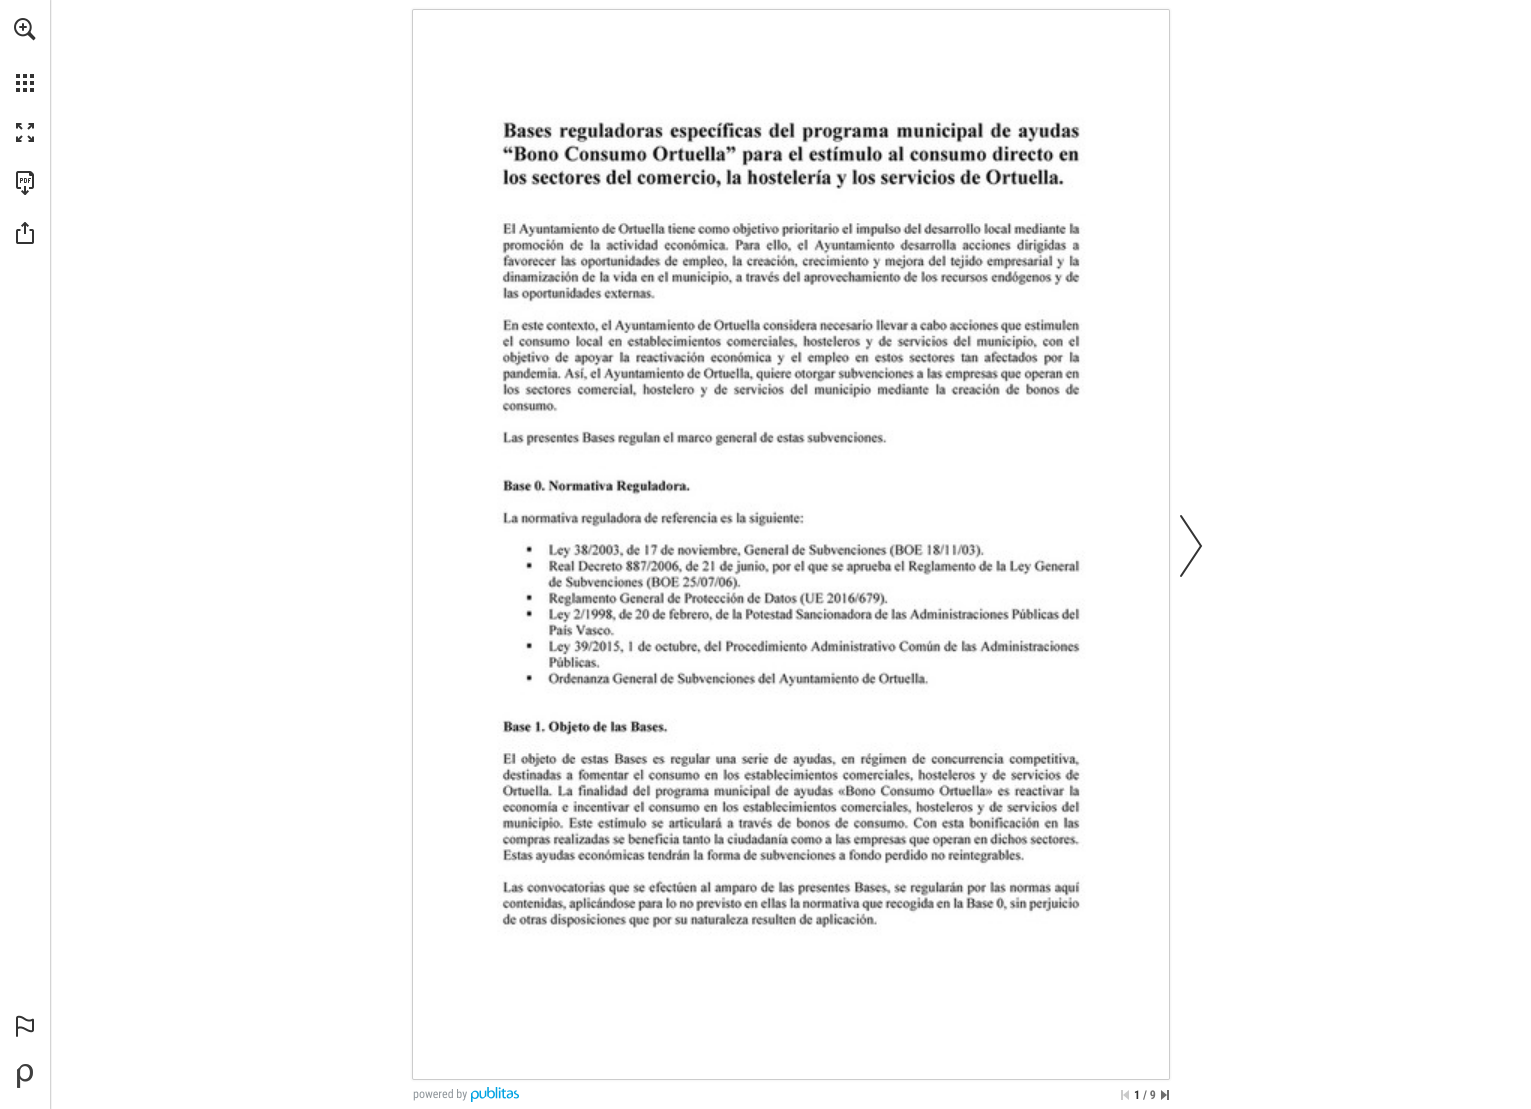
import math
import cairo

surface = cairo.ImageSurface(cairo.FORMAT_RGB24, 1531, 1109)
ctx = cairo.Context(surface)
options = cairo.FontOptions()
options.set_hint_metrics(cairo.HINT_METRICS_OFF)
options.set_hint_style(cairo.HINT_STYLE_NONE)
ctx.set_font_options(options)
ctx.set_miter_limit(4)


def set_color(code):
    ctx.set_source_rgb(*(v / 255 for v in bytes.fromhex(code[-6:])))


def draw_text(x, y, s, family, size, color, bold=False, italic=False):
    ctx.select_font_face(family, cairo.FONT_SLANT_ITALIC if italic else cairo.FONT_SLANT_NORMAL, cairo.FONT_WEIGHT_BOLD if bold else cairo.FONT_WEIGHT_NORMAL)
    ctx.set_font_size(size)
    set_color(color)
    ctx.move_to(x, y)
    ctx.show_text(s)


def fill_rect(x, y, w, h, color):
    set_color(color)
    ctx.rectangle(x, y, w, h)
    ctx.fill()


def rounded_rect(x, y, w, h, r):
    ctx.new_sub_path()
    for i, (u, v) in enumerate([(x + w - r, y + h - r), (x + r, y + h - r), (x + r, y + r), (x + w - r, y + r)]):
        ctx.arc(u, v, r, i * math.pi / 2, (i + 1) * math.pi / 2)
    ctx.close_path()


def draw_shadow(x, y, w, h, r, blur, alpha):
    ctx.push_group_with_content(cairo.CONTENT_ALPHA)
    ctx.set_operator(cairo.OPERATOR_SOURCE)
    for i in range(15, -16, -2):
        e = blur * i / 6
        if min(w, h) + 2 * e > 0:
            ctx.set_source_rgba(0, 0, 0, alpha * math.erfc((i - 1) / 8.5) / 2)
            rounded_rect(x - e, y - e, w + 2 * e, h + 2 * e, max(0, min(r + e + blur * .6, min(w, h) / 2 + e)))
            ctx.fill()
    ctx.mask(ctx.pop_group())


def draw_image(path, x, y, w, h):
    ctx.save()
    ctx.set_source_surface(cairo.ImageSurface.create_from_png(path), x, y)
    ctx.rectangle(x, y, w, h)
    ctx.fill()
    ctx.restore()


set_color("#ffffff")
ctx.paint()
set_color("#000000")
draw_shadow(1, 0, 50, 1109, 0, 0.5, 0.2)
fill_rect(0, 0, 50, 1109, "#ffffff")
draw_image("assets/img1.png", 14, 18, 22, 23)
draw_image("assets/img2.png", 16, 74, 18, 18)
draw_image("assets/img3.png", 16, 123, 18, 19)
draw_image("assets/img4.png", 16, 171, 18, 24)
draw_image("assets/img5.png", 16, 222, 18, 22)
draw_image("assets/img6.png", 16, 1015, 18, 22)
draw_image("assets/img7.png", 17, 1064, 16, 24)
set_color("#121212")
draw_shadow(411, 8, 760, 1073, 3, 1, 0.05)
set_color("#ffffff")
rounded_rect(412.5, 9.5, 757, 1070, 1.5)
ctx.fill_preserve()
set_color("#cccccc")
ctx.set_line_width(1)
ctx.stroke()
draw_image("assets/img8.png", 497, 10, 672, 1069)
draw_image("assets/img9.png", 471, 1087, 48, 15)
draw_text(413, 1098, "powered by", "Roboto Condensed", 12, "#8f969b")
draw_image("assets/img10.png", 1180, 515, 23, 62)
draw_image("assets/img11.png", 1121, 1090, 8, 10)
draw_text(1134, 1099, "1", "Roboto Condensed", 12, "#333333", bold=True)
draw_text(1143, 1099, "/ 9", "Roboto Condensed", 12, "#707070", bold=True)
draw_image("assets/img12.png", 1161, 1090, 8, 10)
surface.write_to_png("output.png")
